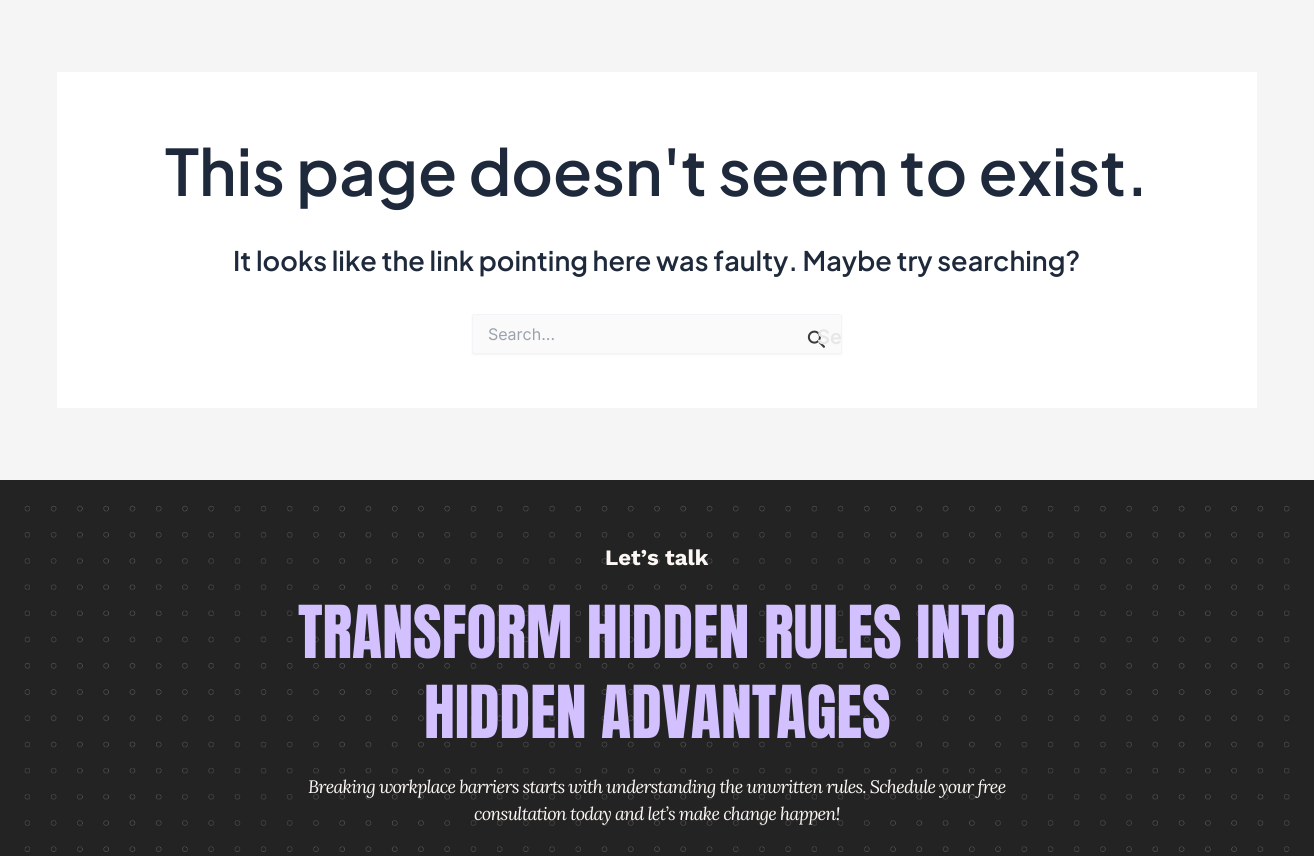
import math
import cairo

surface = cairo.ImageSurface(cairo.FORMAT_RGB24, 1314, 856)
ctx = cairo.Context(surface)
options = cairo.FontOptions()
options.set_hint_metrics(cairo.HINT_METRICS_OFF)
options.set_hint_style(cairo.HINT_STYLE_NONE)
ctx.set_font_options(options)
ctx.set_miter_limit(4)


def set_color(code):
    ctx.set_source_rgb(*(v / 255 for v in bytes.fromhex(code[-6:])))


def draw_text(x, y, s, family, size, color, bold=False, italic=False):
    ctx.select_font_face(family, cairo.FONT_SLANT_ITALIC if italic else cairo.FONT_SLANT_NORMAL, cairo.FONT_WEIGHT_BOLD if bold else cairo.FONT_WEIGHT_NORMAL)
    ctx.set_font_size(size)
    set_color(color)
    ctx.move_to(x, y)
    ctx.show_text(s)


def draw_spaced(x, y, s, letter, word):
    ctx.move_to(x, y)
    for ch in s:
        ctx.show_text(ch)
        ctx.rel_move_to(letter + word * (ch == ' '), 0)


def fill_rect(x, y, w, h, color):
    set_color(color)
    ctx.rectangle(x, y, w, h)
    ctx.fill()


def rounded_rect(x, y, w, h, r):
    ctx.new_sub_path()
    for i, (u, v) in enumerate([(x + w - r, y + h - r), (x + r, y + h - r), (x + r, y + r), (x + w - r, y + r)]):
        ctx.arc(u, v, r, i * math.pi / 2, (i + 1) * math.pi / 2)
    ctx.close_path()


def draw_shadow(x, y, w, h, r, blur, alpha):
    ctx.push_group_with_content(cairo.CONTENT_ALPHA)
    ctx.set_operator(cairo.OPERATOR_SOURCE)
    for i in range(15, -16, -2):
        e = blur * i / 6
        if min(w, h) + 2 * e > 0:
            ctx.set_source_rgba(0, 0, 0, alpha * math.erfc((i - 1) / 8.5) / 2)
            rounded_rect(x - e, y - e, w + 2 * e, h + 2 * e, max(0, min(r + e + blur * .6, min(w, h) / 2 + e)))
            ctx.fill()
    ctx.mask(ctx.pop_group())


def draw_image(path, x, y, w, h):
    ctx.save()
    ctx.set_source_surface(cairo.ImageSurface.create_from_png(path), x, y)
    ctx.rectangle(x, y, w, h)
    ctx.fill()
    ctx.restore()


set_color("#f5f5f5")
ctx.paint()
fill_rect(57, 72, 1200, 336, "#ffffff")
draw_text(165, 196, "This page doesn't seem to exist.", "Plus Jakarta Sans SemiBold", 64, "#1e293b")
draw_text(233, 271, "It looks like the link pointing here was faulty. Maybe try searching?", "Plus Jakarta Sans SemiBold", 27, "#1e293b")
set_color("#000000")
draw_shadow(472, 315, 370, 40, 2, 1, 0.05)
set_color("#fafafa")
rounded_rect(472.5, 314.5, 369, 39, 1.5)
ctx.fill_preserve()
set_color("#f2f5f7")
ctx.set_line_width(1)
ctx.stroke()
draw_text(488, 340, "Search...", "Inter", 16, "#9ca3af")
draw_image("assets/img1.png", 807, 330, 18, 18)
draw_text(817, 344, "Se", "Inter SemiBold", 20, "#e7e7e7")
draw_image("assets/img2.png", 0, 480, 1314, 376)
draw_text(605, 565, "Let’s talk", "Work Sans", 22, "#fcf7f4", bold=True)
draw_text(298, 658, "TRANSFORM HIDDEN RULES INTO", "Anton", 62, "#d2c0ff")
draw_text(424, 738, "HIDDEN ADVANTAGES", "Anton", 62, "#d2c0ff")
ctx.select_font_face("Lora", cairo.FONT_SLANT_ITALIC)
ctx.set_font_size(18)
set_color("#fcf7f4")
draw_spaced(308, 793, "Breaking workplace barriers starts with understanding the unwritten rules. Schedule your free", -0.8, 0)
draw_spaced(474, 820, "consultation today and let’s make change happen!", -0.8, 0)
surface.write_to_png("output.png")
